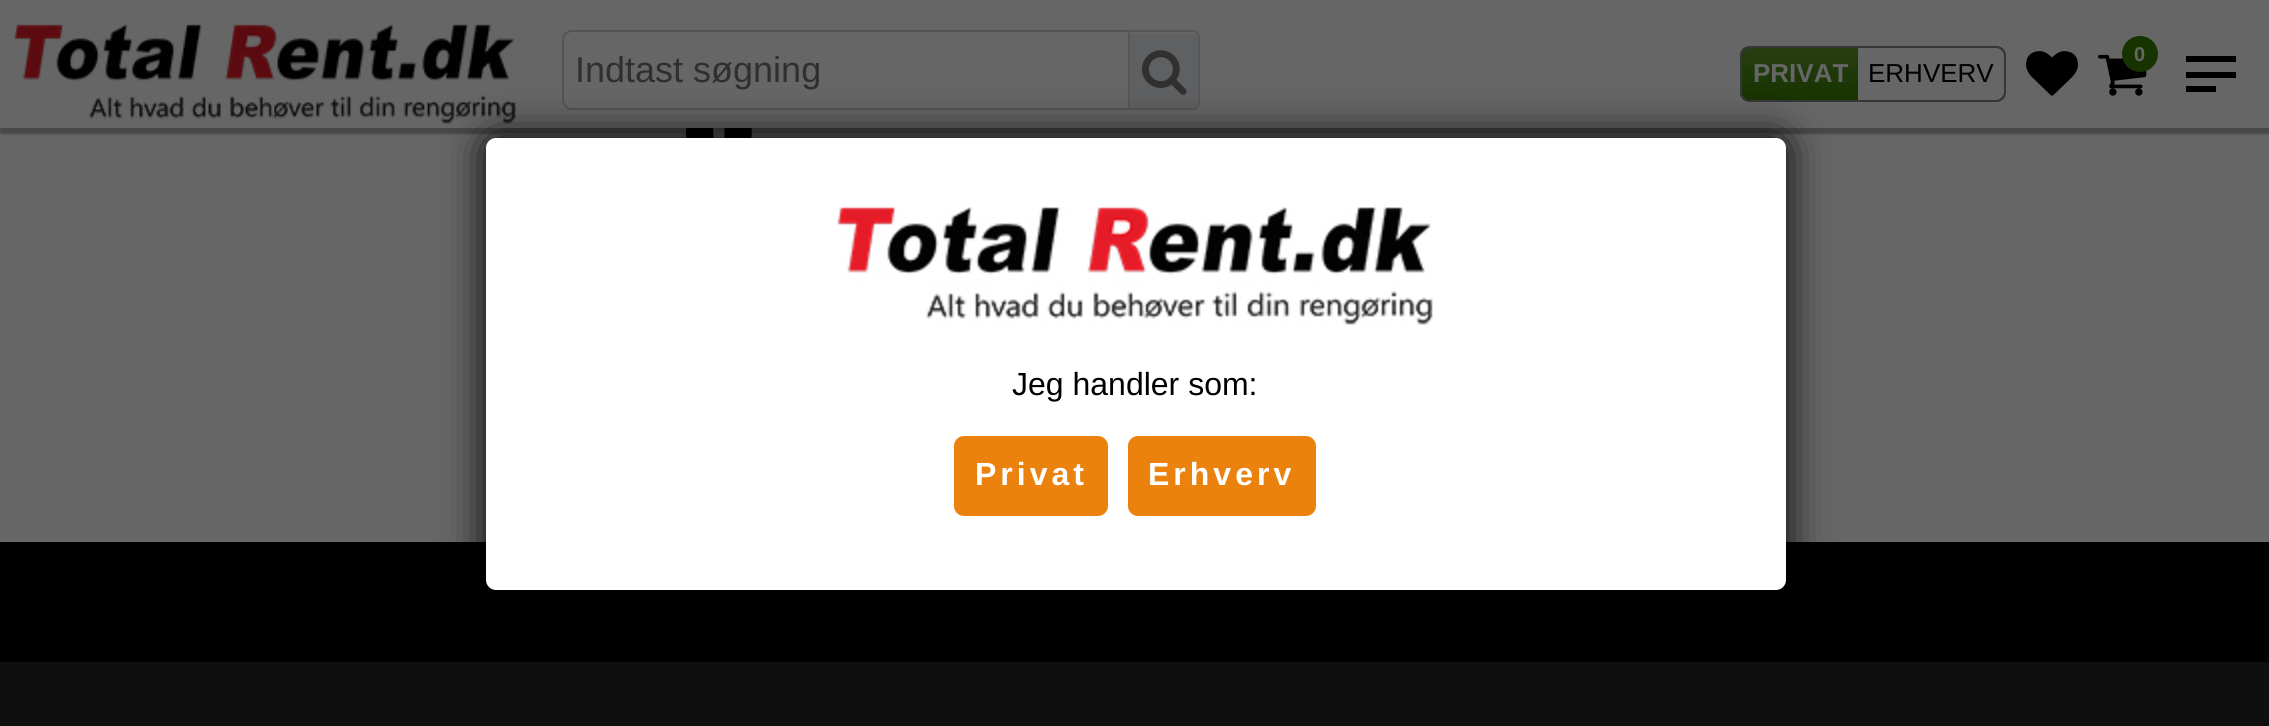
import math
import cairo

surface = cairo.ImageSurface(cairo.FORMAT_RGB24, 2269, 726)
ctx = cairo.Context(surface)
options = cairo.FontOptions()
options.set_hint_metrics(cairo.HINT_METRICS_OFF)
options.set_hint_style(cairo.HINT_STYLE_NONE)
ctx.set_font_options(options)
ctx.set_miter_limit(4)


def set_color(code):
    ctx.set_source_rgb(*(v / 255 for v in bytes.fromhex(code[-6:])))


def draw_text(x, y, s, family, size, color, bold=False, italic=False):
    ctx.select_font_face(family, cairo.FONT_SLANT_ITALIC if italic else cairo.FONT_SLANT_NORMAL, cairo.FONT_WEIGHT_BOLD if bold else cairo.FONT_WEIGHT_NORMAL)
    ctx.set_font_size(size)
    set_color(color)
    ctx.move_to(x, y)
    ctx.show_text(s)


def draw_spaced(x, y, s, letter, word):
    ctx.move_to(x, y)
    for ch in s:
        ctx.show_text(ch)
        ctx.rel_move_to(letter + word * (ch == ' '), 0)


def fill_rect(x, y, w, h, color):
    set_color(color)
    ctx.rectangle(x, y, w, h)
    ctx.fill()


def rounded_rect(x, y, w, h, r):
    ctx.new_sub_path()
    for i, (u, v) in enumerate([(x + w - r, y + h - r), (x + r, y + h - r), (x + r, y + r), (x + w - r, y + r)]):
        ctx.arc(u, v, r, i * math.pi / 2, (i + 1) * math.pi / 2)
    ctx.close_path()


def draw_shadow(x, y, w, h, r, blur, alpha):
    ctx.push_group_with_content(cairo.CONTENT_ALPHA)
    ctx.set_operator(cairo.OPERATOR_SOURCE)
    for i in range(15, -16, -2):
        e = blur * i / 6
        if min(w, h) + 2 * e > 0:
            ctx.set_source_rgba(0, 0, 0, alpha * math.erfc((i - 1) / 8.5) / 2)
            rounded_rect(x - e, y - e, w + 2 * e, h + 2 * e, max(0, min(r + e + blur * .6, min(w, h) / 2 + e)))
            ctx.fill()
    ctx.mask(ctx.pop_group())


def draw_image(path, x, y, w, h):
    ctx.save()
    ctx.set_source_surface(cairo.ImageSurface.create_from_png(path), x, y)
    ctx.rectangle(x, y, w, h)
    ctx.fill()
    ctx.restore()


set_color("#666666")
ctx.paint()
draw_image("assets/img5.png", 686, 128, 66, 10)
set_color("#000000")
draw_shadow(0, 6, 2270, 128, 0, 1, 0.3)
fill_rect(0, 5, 2269, 123, "#666666")
draw_image("assets/img1.png", 14, 24, 502, 101)
rounded_rect(563, 31, 574, 78, 9)
set_color("#535353")
ctx.stroke()
draw_text(575, 82, "Indtast søgning", "Liberation Sans", 36, "#2f2f2f")
set_color("#5f6061")
ctx.new_path()
ctx.move_to(1128, 30)
ctx.line_to(1192, 30)
ctx.curve_to(1196.5, 30, 1200, 33.5, 1200, 38)
ctx.line_to(1200, 102)
ctx.curve_to(1200, 106.5, 1196.5, 110, 1192, 110)
ctx.line_to(1128, 110)
ctx.close_path()
ctx.fill()
set_color("#666666")
ctx.new_path()
ctx.move_to(1130, 34)
ctx.line_to(1192, 34)
ctx.curve_to(1195, 34, 1198, 37, 1198, 40)
ctx.line_to(1198, 38)
ctx.curve_to(1198, 35, 1195, 32, 1192, 32)
ctx.line_to(1130, 32)
ctx.close_path()
ctx.fill()
ctx.new_path()
ctx.move_to(1129, 31)
ctx.line_to(1192, 31)
ctx.curve_to(1196, 31, 1199, 34, 1199, 38)
ctx.line_to(1199, 102)
ctx.curve_to(1199, 106, 1196, 109, 1192, 109)
ctx.line_to(1129, 109)
ctx.close_path()
set_color("#56575a")
ctx.stroke()
draw_image("assets/img2.png", 1142, 50, 45, 45)
ctx.save()
ctx.new_path()
ctx.move_to(1750, 46)
ctx.line_to(1858, 46)
ctx.line_to(1858, 102)
ctx.line_to(1750, 102)
ctx.curve_to(1744.5, 102, 1740, 97.5, 1740, 92)
ctx.line_to(1740, 56)
ctx.curve_to(1740, 50.5, 1744.5, 46, 1750, 46)
ctx.close_path()
ctx.clip()
gradient = cairo.LinearGradient(1800, 48, 1800, 100)
gradient.add_color_stop_rgba(0, 0.153, 0.243, 0.071, 1)
gradient.add_color_stop_rgba(1, 0.09, 0.2, 0, 1)
ctx.set_source(gradient)
ctx.rectangle(1740, 48, 118, 52)
ctx.fill()
ctx.restore()
set_color("#363636")
ctx.set_fill_rule(cairo.FILL_RULE_EVEN_ODD)
ctx.new_path()
ctx.move_to(1750, 46)
ctx.line_to(1858, 46)
ctx.line_to(1858, 102)
ctx.line_to(1750, 102)
ctx.curve_to(1744, 102, 1740, 98, 1740, 92)
ctx.line_to(1740, 56)
ctx.curve_to(1740, 50, 1744, 46, 1750, 46)
ctx.close_path()
ctx.move_to(1750, 48)
ctx.line_to(1858, 48)
ctx.line_to(1858, 100)
ctx.line_to(1750, 100)
ctx.curve_to(1746, 100, 1742, 96, 1742, 92)
ctx.line_to(1742, 56)
ctx.curve_to(1742, 52, 1746, 48, 1750, 48)
ctx.close_path()
ctx.fill()
draw_text(1753, 82, "PRIVAT", "Liberation Sans", 26, "#666666", bold=True)
set_color("#363636")
ctx.new_path()
ctx.move_to(1858, 46)
ctx.line_to(1996, 46)
ctx.curve_to(2002, 46, 2006, 50, 2006, 56)
ctx.line_to(2006, 92)
ctx.curve_to(2006, 98, 2002, 102, 1996, 102)
ctx.line_to(1858, 102)
ctx.close_path()
ctx.move_to(1858, 48)
ctx.line_to(1996, 48)
ctx.curve_to(2000, 48, 2004, 52, 2004, 56)
ctx.line_to(2004, 92)
ctx.curve_to(2004, 96, 2000, 100, 1996, 100)
ctx.line_to(1858, 100)
ctx.close_path()
ctx.fill()
draw_text(1868, 82, "ERHVERV", "Liberation Sans", 26, "#000000")
draw_image("assets/img3.png", 2026, 51, 52, 45)
draw_image("assets/img4.png", 2098, 54, 49, 42)
set_color("#173300")
ctx.arc(2140, 54, 18, 0, 2 * math.pi)
ctx.fill()
draw_text(2134, 61, "0", "Liberation Sans", 20, "#666666", bold=True)
fill_rect(2186, 56, 50, 6, "#000000")
fill_rect(2186, 72, 50, 6, "#000000")
fill_rect(2186, 86, 30, 6, "#000000")
fill_rect(0, 542, 2269, 120, "#000000")
set_color("#000000")
draw_shadow(486, 138, 1300, 452, 10, 20, 1)
set_color("#ffffff")
rounded_rect(486, 138, 1300, 452, 10)
ctx.fill()
draw_image("assets/img6.png", 837, 207, 596, 118)
draw_text(1012, 395, "Jeg handler som:", "Liberation Sans", 32, "#000000")
set_color("#eb820e")
rounded_rect(954, 436, 154, 80, 10)
ctx.fill()
ctx.select_font_face("Liberation Sans", cairo.FONT_SLANT_NORMAL, cairo.FONT_WEIGHT_BOLD)
set_color("#ffffff")
draw_spaced(975, 485, "Privat", 4, 0)
set_color("#eb820e")
rounded_rect(1128, 436, 188, 80, 10)
ctx.fill()
set_color("#ffffff")
draw_spaced(1148, 485, "Erhverv", 4, 0)
fill_rect(0, 662, 2269, 64, "#0f0f0f")
surface.write_to_png("output.png")
